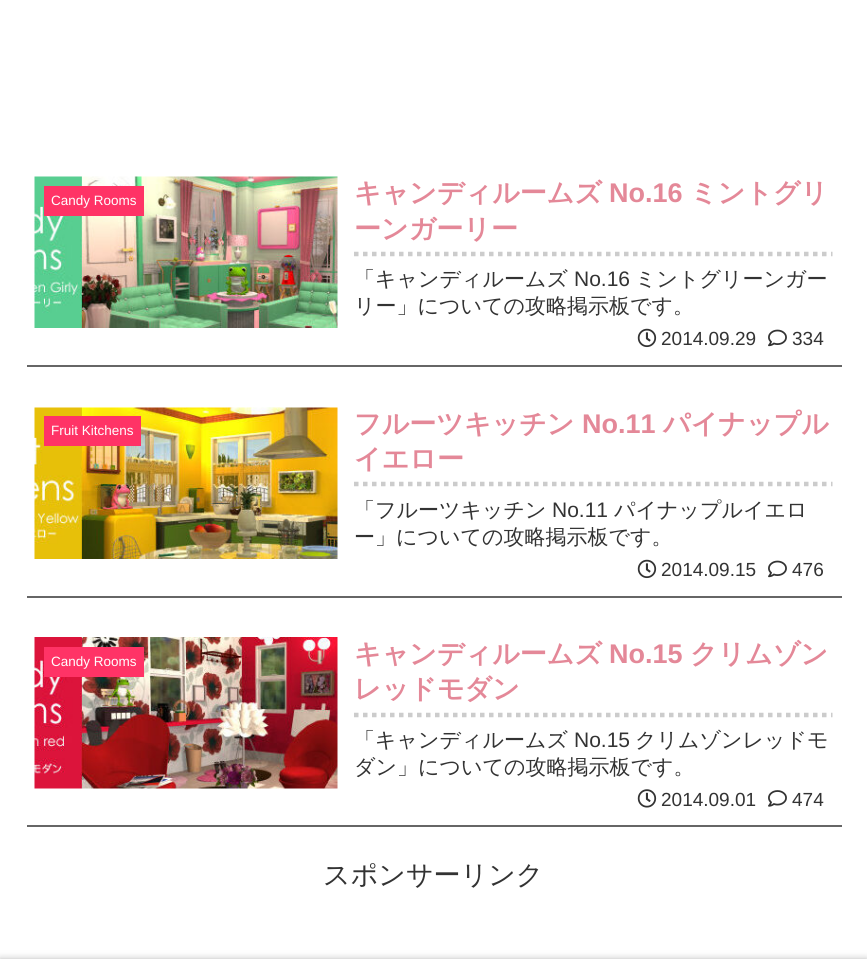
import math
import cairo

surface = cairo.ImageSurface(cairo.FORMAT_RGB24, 867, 959)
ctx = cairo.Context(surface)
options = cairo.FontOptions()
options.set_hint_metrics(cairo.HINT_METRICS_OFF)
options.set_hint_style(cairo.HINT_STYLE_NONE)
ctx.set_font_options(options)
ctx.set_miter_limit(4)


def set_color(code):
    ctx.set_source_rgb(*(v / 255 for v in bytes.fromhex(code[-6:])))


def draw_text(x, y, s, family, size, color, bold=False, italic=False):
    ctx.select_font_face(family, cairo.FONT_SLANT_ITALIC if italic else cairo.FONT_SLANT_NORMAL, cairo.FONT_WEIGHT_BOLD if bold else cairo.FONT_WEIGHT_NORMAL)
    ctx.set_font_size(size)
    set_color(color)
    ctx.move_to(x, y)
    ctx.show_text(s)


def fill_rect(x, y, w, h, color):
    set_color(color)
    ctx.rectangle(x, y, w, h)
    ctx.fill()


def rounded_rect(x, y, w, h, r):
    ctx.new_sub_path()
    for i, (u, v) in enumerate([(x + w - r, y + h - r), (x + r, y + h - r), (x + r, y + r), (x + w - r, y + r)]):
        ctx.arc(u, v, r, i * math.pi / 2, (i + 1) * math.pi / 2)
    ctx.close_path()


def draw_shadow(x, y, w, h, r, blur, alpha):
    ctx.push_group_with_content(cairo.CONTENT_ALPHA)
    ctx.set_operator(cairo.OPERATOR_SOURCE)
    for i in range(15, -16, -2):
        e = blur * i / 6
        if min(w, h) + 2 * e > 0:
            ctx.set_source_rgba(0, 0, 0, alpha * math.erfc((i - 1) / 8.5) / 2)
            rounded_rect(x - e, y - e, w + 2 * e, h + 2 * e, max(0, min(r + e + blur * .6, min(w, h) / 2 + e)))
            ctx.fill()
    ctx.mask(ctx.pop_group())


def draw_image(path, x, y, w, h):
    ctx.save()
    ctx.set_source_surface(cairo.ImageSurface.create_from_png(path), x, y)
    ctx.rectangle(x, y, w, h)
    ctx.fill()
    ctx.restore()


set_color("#ffffff")
ctx.paint()
fill_rect(27, 365, 815, 2, "#666666")
draw_image("assets/img1.png", 34, 176, 304, 152)
fill_rect(44, 186, 100, 30, "#ff3366")
draw_text(51, 205, "Candy Rooms", "Liberation Sans", 13.5, "#ffffff")
ctx.new_path()
ctx.move_to(354, 254)
ctx.line_to(832.5, 254)
set_color("#cccccc")
ctx.set_line_width(4.5)
ctx.set_dash([4.5, 4.5])
ctx.stroke()
draw_text(354, 202, "キャンディルームズ", "WenQuanYi Zen Hei", 27, "#e48898", bold=True)
draw_text(609, 202, "No.16", "Liberation Sans", 27, "#e48898", bold=True)
draw_text(690, 202, "ミントグリ", "WenQuanYi Zen Hei", 27, "#e48898", bold=True)
draw_text(354, 238, "ーンガーリー", "WenQuanYi Zen Hei", 27, "#e48898", bold=True)
draw_text(354, 286, "「キャンディルームズ", "WenQuanYi Zen Hei Medium", 21, "#333333")
draw_text(574, 286, "No.16", "Liberation Sans", 21, "#333333")
draw_text(635, 286, "ミントグリーンガー", "WenQuanYi Zen Hei Medium", 21, "#333333")
draw_text(354, 313, "リー」についての攻略掲示板です。", "WenQuanYi Zen Hei Medium", 21, "#333333")
draw_image("assets/img2.png", 637, 328, 20, 20)
draw_text(661, 345, "2014.09.29", "Liberation Sans", 19, "#333333")
draw_image("assets/img3.png", 768, 329, 19, 18)
draw_text(792, 345, "334", "Liberation Sans", 19, "#333333")
fill_rect(27, 596, 815, 2, "#666666")
draw_image("assets/img4.png", 34, 407, 304, 152)
fill_rect(44, 416, 97, 30, "#ff3366")
draw_text(51, 435, "Fruit Kitchens", "Liberation Sans", 13.5, "#ffffff")
ctx.new_path()
ctx.move_to(354, 484)
ctx.line_to(832.5, 484)
set_color("#cccccc")
ctx.stroke()
draw_text(354, 433, "フルーツキッチン", "WenQuanYi Zen Hei", 27, "#e48898", bold=True)
draw_text(582, 433, "No.11", "Liberation Sans", 27, "#e48898", bold=True)
draw_text(663, 433, "パイナップル", "WenQuanYi Zen Hei", 27, "#e48898", bold=True)
draw_text(354, 468, "イエロー", "WenQuanYi Zen Hei", 27, "#e48898", bold=True)
draw_text(354, 517, "「フルーツキッチン", "WenQuanYi Zen Hei Medium", 21, "#333333")
draw_text(552, 517, "No.11", "Liberation Sans", 21, "#333333")
draw_text(614, 517, "パイナップルイエロ", "WenQuanYi Zen Hei Medium", 21, "#333333")
draw_text(354, 544, "ー」についての攻略掲示板です。", "WenQuanYi Zen Hei Medium", 21, "#333333")
draw_image("assets/img2.png", 637, 559, 20, 20)
draw_text(661, 576, "2014.09.15", "Liberation Sans", 19, "#333333")
draw_image("assets/img3.png", 768, 560, 19, 18)
draw_text(792, 576, "476", "Liberation Sans", 19, "#333333")
fill_rect(27, 825, 815, 2, "#666666")
draw_image("assets/img5.png", 34, 637, 304, 152)
fill_rect(44, 647, 100, 30, "#ff3366")
draw_text(51, 666, "Candy Rooms", "Liberation Sans", 13.5, "#ffffff")
ctx.new_path()
ctx.move_to(354, 715)
ctx.line_to(832.5, 715)
set_color("#cccccc")
ctx.stroke()
draw_text(354, 663, "キャンディルームズ", "WenQuanYi Zen Hei", 27, "#e48898", bold=True)
draw_text(609, 663, "No.15", "Liberation Sans", 27, "#e48898", bold=True)
draw_text(690, 663, "クリムゾン", "WenQuanYi Zen Hei", 27, "#e48898", bold=True)
draw_text(354, 698, "レッドモダン", "WenQuanYi Zen Hei", 27, "#e48898", bold=True)
draw_text(354, 747, "「キャンディルームズ", "WenQuanYi Zen Hei Medium", 21, "#333333")
draw_text(574, 747, "No.15", "Liberation Sans", 21, "#333333")
draw_text(635, 747, "クリムゾンレッドモ", "WenQuanYi Zen Hei Medium", 21, "#333333")
draw_text(354, 774, "ダン」についての攻略掲示板です。", "WenQuanYi Zen Hei Medium", 21, "#333333")
draw_image("assets/img6.png", 637, 789, 20, 19)
draw_text(661, 806, "2014.09.01", "Liberation Sans", 19, "#333333")
draw_image("assets/img7.png", 768, 790, 19, 17)
draw_text(792, 806, "474", "Liberation Sans", 19, "#333333")
draw_text(323, 884, "スポンサーリンク", "WenQuanYi Zen Hei Medium", 27, "#333333")
set_color("#a9a9a9")
draw_shadow(0, 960, 867, 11, 0, 4, 1)
surface.write_to_png("output.png")
